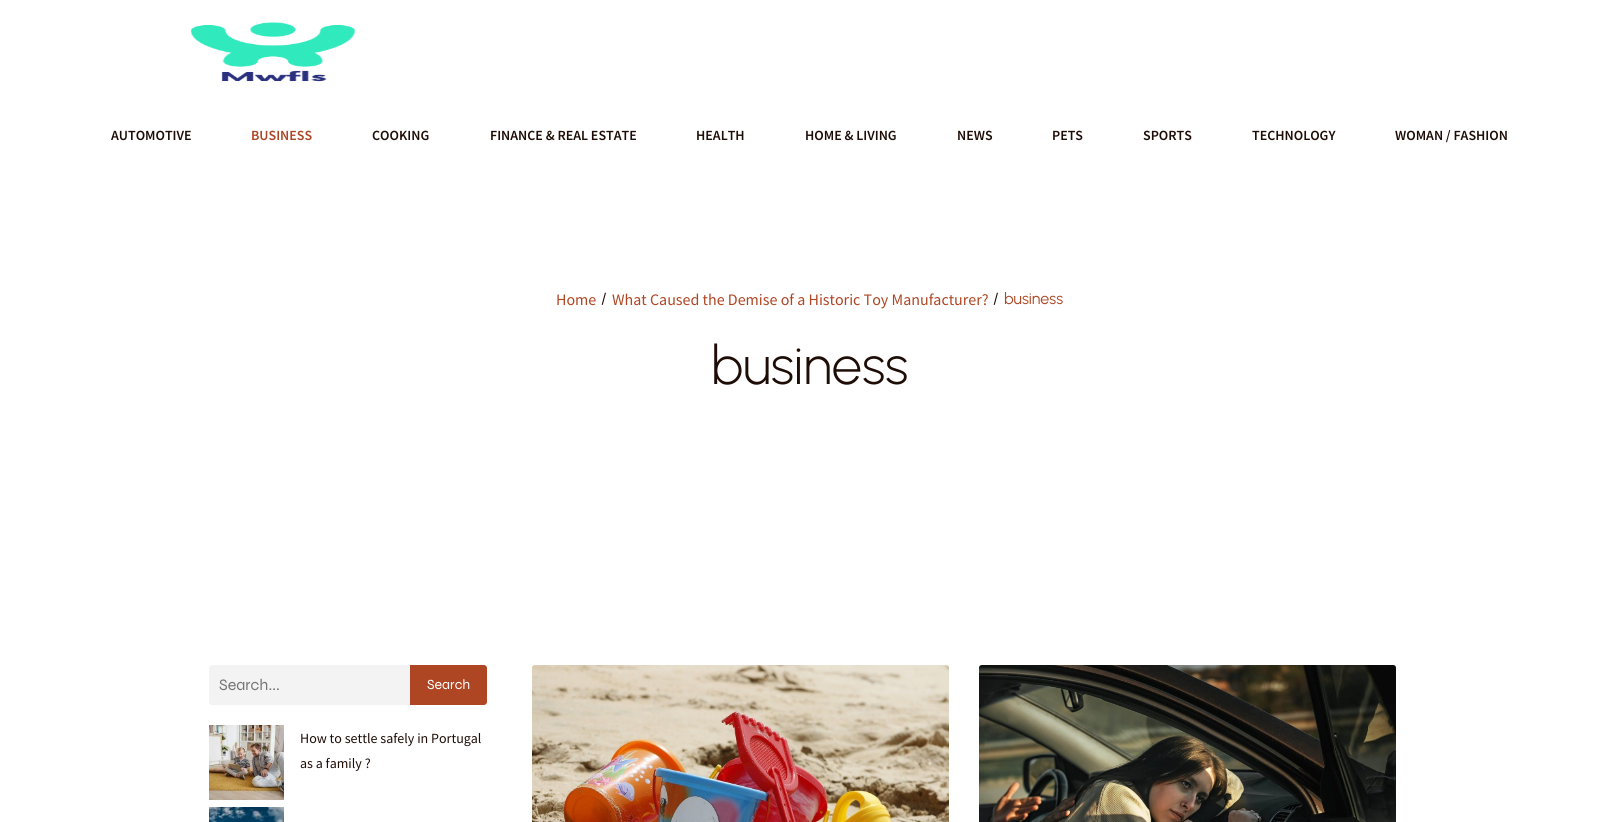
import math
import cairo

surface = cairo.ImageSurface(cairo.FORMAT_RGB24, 1619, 822)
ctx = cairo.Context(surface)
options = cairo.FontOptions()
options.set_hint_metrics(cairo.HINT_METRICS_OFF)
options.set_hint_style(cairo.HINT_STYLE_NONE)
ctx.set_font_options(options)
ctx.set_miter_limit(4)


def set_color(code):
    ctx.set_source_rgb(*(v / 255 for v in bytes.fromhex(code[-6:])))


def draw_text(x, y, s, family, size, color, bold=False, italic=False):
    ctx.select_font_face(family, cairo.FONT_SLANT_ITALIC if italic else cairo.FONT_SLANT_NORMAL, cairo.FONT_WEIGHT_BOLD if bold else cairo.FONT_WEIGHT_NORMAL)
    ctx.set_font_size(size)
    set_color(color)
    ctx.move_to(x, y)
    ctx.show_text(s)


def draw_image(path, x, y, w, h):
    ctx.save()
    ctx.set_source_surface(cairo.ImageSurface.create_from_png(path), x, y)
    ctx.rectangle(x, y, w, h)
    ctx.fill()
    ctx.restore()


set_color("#ffffff")
ctx.paint()
draw_image("assets/img1.png", 191, 22, 165, 60)
draw_text(111, 140, "AUTOMOTIVE", "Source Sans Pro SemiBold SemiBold", 14, "#1e0c06")
draw_text(251, 140, "BUSINESS", "Source Sans Pro SemiBold SemiBold", 14, "#ae4624")
draw_text(372, 140, "COOKING", "Source Sans Pro SemiBold SemiBold", 14, "#1e0c06")
draw_text(490, 140, "FINANCE & REAL ESTATE", "Source Sans Pro SemiBold SemiBold", 14, "#1e0c06")
draw_text(696, 140, "HEALTH", "Source Sans Pro SemiBold SemiBold", 14, "#1e0c06")
draw_text(805, 140, "HOME & LIVING", "Source Sans Pro SemiBold SemiBold", 14, "#1e0c06")
draw_text(957, 140, "NEWS", "Source Sans Pro SemiBold SemiBold", 14, "#1e0c06")
draw_text(1052, 140, "PETS", "Source Sans Pro SemiBold SemiBold", 14, "#1e0c06")
draw_text(1143, 140, "SPORTS", "Source Sans Pro SemiBold SemiBold", 14, "#1e0c06")
draw_text(1252, 140, "TECHNOLOGY", "Source Sans Pro SemiBold SemiBold", 14, "#1e0c06")
draw_text(1395, 140, "WOMAN / FASHION", "Source Sans Pro SemiBold SemiBold", 14, "#1e0c06")
draw_text(556, 305, "Home", "Source Sans Pro", 16, "#ae4624")
draw_text(601, 304, "/", "Urbanist", 16, "#1e0c06")
draw_text(612, 305, "What Caused the Demise of a Historic Toy Manufacturer?", "Source Sans Pro", 16, "#ae4624")
draw_text(993, 304, "/", "Urbanist", 16, "#1e0c06")
draw_text(1004, 304, "business", "Urbanist", 16, "#ae4624")
draw_text(711, 384, "business", "Urbanist Light", 54, "#1e0c06")
set_color("#f4f3f3")
ctx.new_path()
ctx.move_to(212, 665)
ctx.line_to(410, 665)
ctx.line_to(410, 705)
ctx.line_to(212, 705)
ctx.curve_to(210.5, 705, 209, 703.5, 209, 702)
ctx.line_to(209, 668)
ctx.curve_to(209, 666.5, 210.5, 665, 212, 665)
ctx.close_path()
ctx.fill()
draw_text(219, 690, "Search...", "Syne", 16, "#757575")
set_color("#ae4624")
ctx.new_path()
ctx.move_to(410, 665)
ctx.line_to(484, 665)
ctx.curve_to(485.5, 665, 487, 666.5, 487, 668)
ctx.line_to(487, 702)
ctx.curve_to(487, 703.5, 485.5, 705, 484, 705)
ctx.line_to(410, 705)
ctx.close_path()
ctx.fill()
draw_text(427, 689, "Search", "Syne", 14, "#ffffff")
draw_image("assets/img2.png", 209, 725, 75, 75)
draw_text(300, 743, "How to settle safely in Portugal", "Source Sans Pro", 14, "#1e0c06")
draw_text(300, 768, "as a family ?", "Source Sans Pro", 14, "#1e0c06")
draw_image("assets/img3.png", 209, 807, 75, 15)
draw_image("assets/img4.png", 532, 665, 417, 157)
draw_image("assets/img5.png", 979, 665, 417, 157)
surface.write_to_png("output.png")
